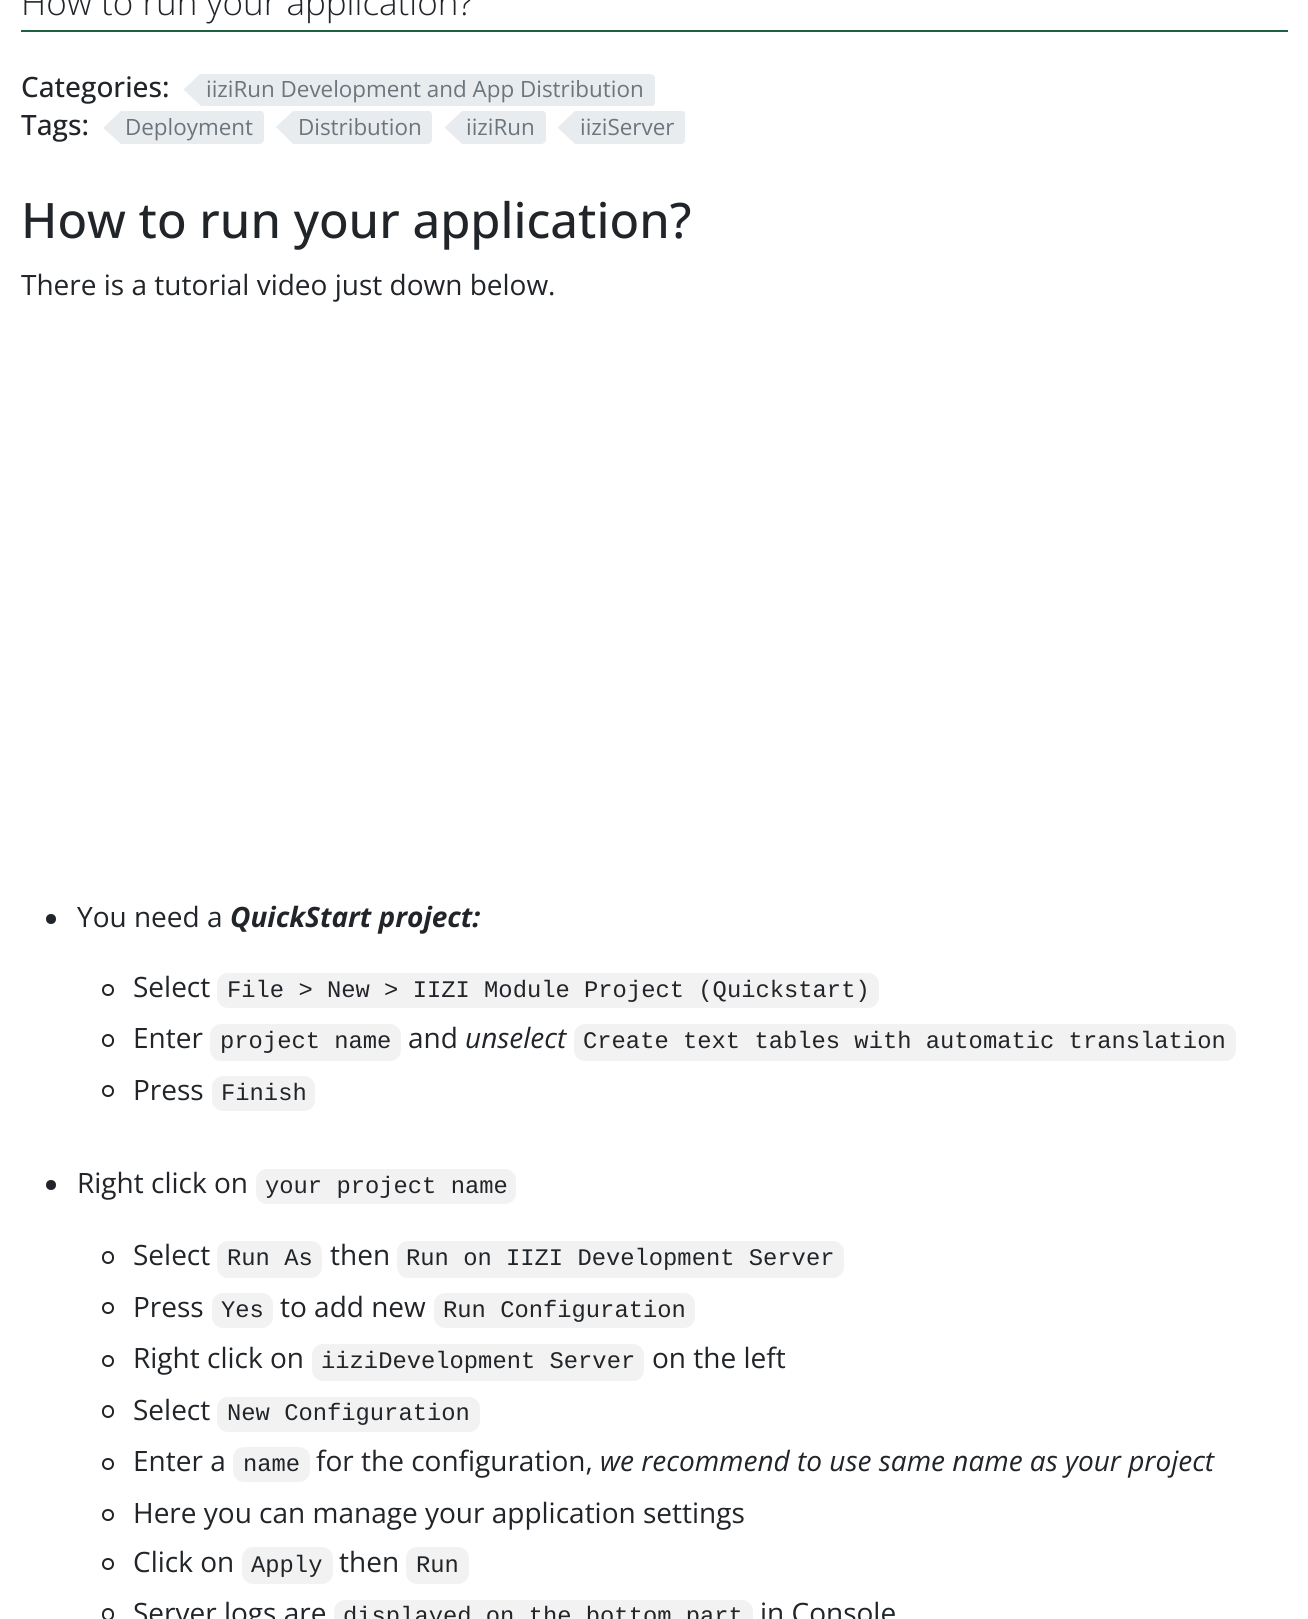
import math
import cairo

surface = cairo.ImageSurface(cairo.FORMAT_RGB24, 1308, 1619)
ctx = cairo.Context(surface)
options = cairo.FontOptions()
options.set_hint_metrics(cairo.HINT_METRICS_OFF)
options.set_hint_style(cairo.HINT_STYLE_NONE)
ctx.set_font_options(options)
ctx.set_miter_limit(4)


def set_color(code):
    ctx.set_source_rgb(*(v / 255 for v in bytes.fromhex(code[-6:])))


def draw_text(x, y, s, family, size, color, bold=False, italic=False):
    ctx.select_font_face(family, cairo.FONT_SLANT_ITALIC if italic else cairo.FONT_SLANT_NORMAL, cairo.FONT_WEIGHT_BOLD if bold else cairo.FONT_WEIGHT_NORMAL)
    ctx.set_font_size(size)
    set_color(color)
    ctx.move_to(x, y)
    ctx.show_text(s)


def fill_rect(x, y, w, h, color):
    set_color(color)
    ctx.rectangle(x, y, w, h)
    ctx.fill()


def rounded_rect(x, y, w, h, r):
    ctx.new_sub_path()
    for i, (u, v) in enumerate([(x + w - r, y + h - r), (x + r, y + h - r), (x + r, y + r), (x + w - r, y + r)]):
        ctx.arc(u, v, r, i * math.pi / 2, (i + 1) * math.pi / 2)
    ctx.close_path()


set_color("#ffffff")
ctx.paint()
fill_rect(21, 30, 1267, 2, "#1d6140")
draw_text(21, 15, "How to run your application?", "Open Sans Light", 35, "#212529")
draw_text(21, 97, "Categories:", "Open Sans Medium", 28, "#212529")
set_color("#e9ecef")
ctx.new_path()
ctx.move_to(200, 74)
ctx.line_to(650, 74)
ctx.line_to(653, 75)
ctx.line_to(655, 77)
ctx.line_to(655, 104)
ctx.line_to(653, 106)
ctx.line_to(201, 106)
ctx.line_to(184, 90)
ctx.line_to(184, 89)
ctx.close_path()
ctx.fill()
draw_text(206, 97, "iiziRun Development and App Distribution", "Open Sans", 22.4, "#6c757d")
draw_text(21, 135, "Tags:", "Open Sans Medium", 28, "#212529")
set_color("#e9ecef")
ctx.new_path()
ctx.move_to(103, 128)
ctx.line_to(121, 111)
ctx.line_to(262, 111)
ctx.curve_to(263, 112, 264, 113, 264, 115)
ctx.line_to(264, 139)
ctx.curve_to(264, 142, 262, 144, 259, 144)
ctx.line_to(121, 144)
ctx.close_path()
ctx.fill()
draw_text(125, 135, "Deployment", "Open Sans", 22.4, "#6c757d")
set_color("#e9ecef")
ctx.new_path()
ctx.move_to(430, 111)
ctx.curve_to(431, 112, 432, 113, 432, 115)
ctx.line_to(432, 139)
ctx.curve_to(432, 142, 430, 144, 427, 144)
ctx.line_to(293, 144)
ctx.line_to(276, 127)
ctx.line_to(293, 111)
ctx.close_path()
ctx.fill()
draw_text(298, 135, "Distribution", "Open Sans", 22.4, "#6c757d")
set_color("#e9ecef")
ctx.new_path()
ctx.move_to(445, 128)
ctx.line_to(445, 127)
ctx.line_to(462, 111)
ctx.line_to(544, 111)
ctx.curve_to(545, 112, 546, 113, 546, 115)
ctx.line_to(546, 139)
ctx.curve_to(546, 142, 544, 144, 541, 144)
ctx.line_to(462, 144)
ctx.close_path()
ctx.fill()
draw_text(466, 135, "iiziRun", "Open Sans", 22.4, "#6c757d")
set_color("#e9ecef")
ctx.new_path()
ctx.move_to(558, 128)
ctx.line_to(558, 127)
ctx.line_to(575, 111)
ctx.line_to(684, 111)
ctx.line_to(685, 113)
ctx.line_to(685, 141)
ctx.line_to(685, 142)
ctx.line_to(682, 144)
ctx.line_to(575, 144)
ctx.close_path()
ctx.fill()
draw_text(580, 135, "iiziServer", "Open Sans", 22.4, "#6c757d")
draw_text(21, 238, "How to run your application?", "Open Sans Medium", 48.9, "#212529")
draw_text(21, 295, "There is a tutorial video just down below.", "Open Sans", 28, "#212529")
ctx.new_path()
ctx.arc(51, 919, 5, 0, 2 * math.pi)
ctx.fill()
draw_text(77, 927, "You need a", "Open Sans", 28, "#212529")
draw_text(230, 927, "QuickStart project:", "Open Sans", 28, "#212529", bold=True, italic=True)
ctx.new_path()
ctx.arc(108, 990, 5, 0, 2 * math.pi)
ctx.stroke()
draw_text(133, 997, "Select", "Open Sans", 28, "#212529")
set_color("#f2f2f2")
rounded_rect(217, 973, 662, 35, 11)
ctx.fill()
draw_text(227, 997, "File > New > IIZI Module Project (Quickstart)", "Liberation Mono", 23.8, "#212529")
rounded_rect(103, 1035, 10, 11, 5)
ctx.stroke()
draw_text(133, 1048, "Enter", "Open Sans", 28, "#212529")
set_color("#f2f2f2")
rounded_rect(210, 1024, 191, 37, 11)
ctx.fill()
draw_text(220, 1048, "project name", "Liberation Mono", 23.8, "#212529")
draw_text(408, 1048, "and", "Open Sans", 28, "#212529")
draw_text(465, 1048, "unselect", "Open Sans", 28, "#212529", italic=True)
set_color("#f2f2f2")
rounded_rect(574, 1024, 662, 37, 11)
ctx.fill()
draw_text(583, 1048, "Create text tables with automatic translation", "Liberation Mono", 23.8, "#212529")
ctx.new_path()
ctx.arc(108, 1091, 5, 0, 2 * math.pi)
ctx.stroke()
draw_text(133, 1100, "Press", "Open Sans", 28, "#212529")
set_color("#f2f2f2")
rounded_rect(212, 1076, 103, 35, 11)
ctx.fill()
draw_text(221, 1100, "Finish", "Liberation Mono", 23.8, "#212529")
ctx.new_path()
ctx.arc(51, 1185, 5, 0, 2 * math.pi)
ctx.fill()
draw_text(77, 1193, "Right click on", "Open Sans", 28, "#212529")
set_color("#f2f2f2")
rounded_rect(256, 1169, 260, 35, 11)
ctx.fill()
draw_text(265, 1193, "your project name", "Liberation Mono", 23.8, "#212529")
rounded_rect(103, 1252, 10, 11, 5)
ctx.stroke()
draw_text(133, 1265, "Select", "Open Sans", 28, "#212529")
set_color("#f2f2f2")
rounded_rect(217, 1241, 105, 37, 11)
ctx.fill()
draw_text(227, 1265, "Run As", "Liberation Mono", 23.8, "#212529")
draw_text(330, 1265, "then", "Open Sans", 28, "#212529")
set_color("#f2f2f2")
rounded_rect(397, 1241, 447, 37, 11)
ctx.fill()
draw_text(406, 1265, "Run on IIZI Development Server", "Liberation Mono", 23.8, "#212529")
ctx.new_path()
ctx.arc(108, 1308, 5, 0, 2 * math.pi)
ctx.stroke()
draw_text(133, 1317, "Press", "Open Sans", 28, "#212529")
set_color("#f2f2f2")
rounded_rect(212, 1293, 61, 35, 11)
ctx.fill()
draw_text(221, 1317, "Yes", "Liberation Mono", 23.8, "#212529")
draw_text(280, 1317, "to add new", "Open Sans", 28, "#212529")
set_color("#f2f2f2")
rounded_rect(434, 1293, 261, 35, 11)
ctx.fill()
draw_text(443, 1317, "Run Configuration", "Liberation Mono", 23.8, "#212529")
ctx.new_path()
ctx.arc(108, 1361, 5, 0, 2 * math.pi)
ctx.stroke()
draw_text(133, 1368, "Right click on", "Open Sans", 28, "#212529")
set_color("#f2f2f2")
rounded_rect(312, 1344, 332, 37, 11)
ctx.fill()
draw_text(321, 1368, "iiziDevelopment Server", "Liberation Mono", 23.8, "#212529")
draw_text(652, 1368, "on the left", "Open Sans", 28, "#212529")
rounded_rect(103, 1406, 10, 11, 5)
ctx.stroke()
draw_text(133, 1420, "Select", "Open Sans", 28, "#212529")
set_color("#f2f2f2")
rounded_rect(217, 1397, 263, 35, 11)
ctx.fill()
draw_text(227, 1420, "New Configuration", "Liberation Mono", 23.8, "#212529")
ctx.new_path()
ctx.arc(108, 1464, 5, 0, 2 * math.pi)
ctx.stroke()
draw_text(133, 1471, "Enter a", "Open Sans", 28, "#212529")
set_color("#f2f2f2")
rounded_rect(233, 1447, 77, 35, 11)
ctx.fill()
draw_text(243, 1471, "name", "Liberation Mono", 23.8, "#212529")
draw_text(316, 1471, "for the configuration,", "Open Sans", 28, "#212529")
draw_text(600, 1471, "we recommend to use same name as your project", "Open Sans", 28, "#212529", italic=True)
ctx.new_path()
ctx.arc(108, 1515, 5, 0, 2 * math.pi)
ctx.stroke()
draw_text(133, 1523, "Here you can manage your application settings", "Open Sans", 28, "#212529")
ctx.new_path()
ctx.arc(108, 1564, 5, 0, 2 * math.pi)
ctx.stroke()
draw_text(133, 1572, "Click on", "Open Sans", 28, "#212529")
set_color("#f2f2f2")
rounded_rect(242, 1547, 91, 37, 11)
ctx.fill()
draw_text(251, 1572, "Apply", "Liberation Mono", 23.8, "#212529")
draw_text(339, 1572, "then", "Open Sans", 28, "#212529")
set_color("#f2f2f2")
rounded_rect(406, 1547, 63, 37, 11)
ctx.fill()
draw_text(416, 1572, "Run", "Liberation Mono", 23.8, "#212529")
rounded_rect(103, 1609, 10, 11, 5)
ctx.stroke()
draw_text(133, 1623, "Server logs are", "Open Sans", 28, "#212529")
set_color("#f2f2f2")
rounded_rect(334, 1600, 419, 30, 11)
ctx.fill()
draw_text(343, 1623, "displayed on the bottom part", "Liberation Mono", 23.8, "#212529")
draw_text(760, 1623, "in Console", "Open Sans", 28, "#212529")
surface.write_to_png("output.png")
